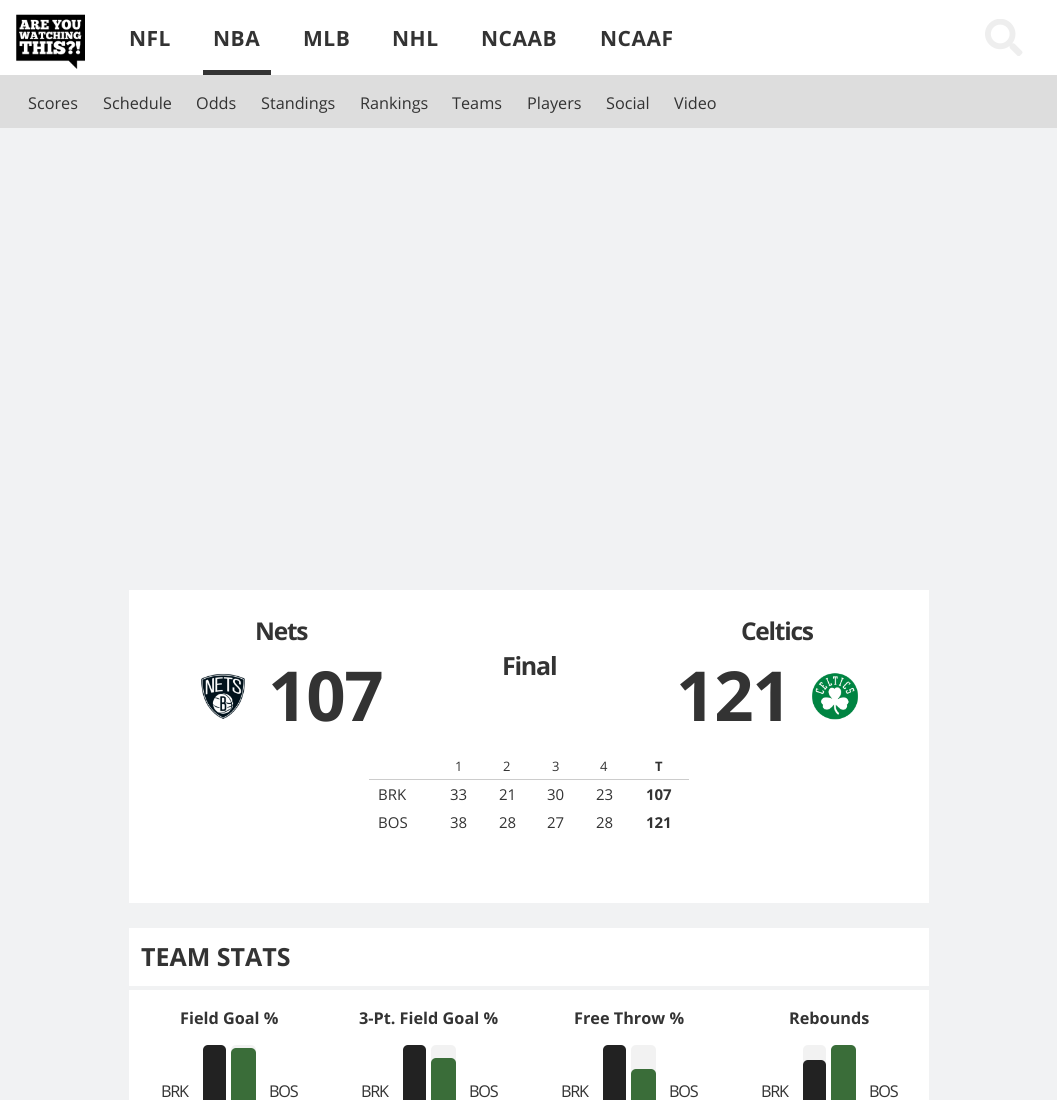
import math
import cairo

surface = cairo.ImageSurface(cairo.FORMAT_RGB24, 1057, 1100)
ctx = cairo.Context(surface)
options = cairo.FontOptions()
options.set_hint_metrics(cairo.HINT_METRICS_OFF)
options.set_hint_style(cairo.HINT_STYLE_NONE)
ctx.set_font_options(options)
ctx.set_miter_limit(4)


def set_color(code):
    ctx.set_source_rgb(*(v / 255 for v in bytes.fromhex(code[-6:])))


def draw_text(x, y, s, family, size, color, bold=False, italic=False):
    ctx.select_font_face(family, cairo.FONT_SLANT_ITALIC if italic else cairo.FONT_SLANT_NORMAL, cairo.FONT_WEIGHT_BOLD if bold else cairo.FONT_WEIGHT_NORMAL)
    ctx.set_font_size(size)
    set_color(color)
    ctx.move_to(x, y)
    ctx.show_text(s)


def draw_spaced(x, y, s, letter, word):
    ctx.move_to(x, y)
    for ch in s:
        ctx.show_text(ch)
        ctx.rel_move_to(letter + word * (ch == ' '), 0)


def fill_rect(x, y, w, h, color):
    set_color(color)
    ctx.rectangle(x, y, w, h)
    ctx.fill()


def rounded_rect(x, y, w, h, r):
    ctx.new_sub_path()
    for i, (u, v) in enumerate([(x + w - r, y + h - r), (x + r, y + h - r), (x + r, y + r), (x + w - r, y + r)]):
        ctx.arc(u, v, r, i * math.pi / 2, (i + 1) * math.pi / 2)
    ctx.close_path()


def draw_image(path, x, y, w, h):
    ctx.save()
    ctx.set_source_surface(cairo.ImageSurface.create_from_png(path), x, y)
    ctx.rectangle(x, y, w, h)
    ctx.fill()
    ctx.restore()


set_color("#f1f2f3")
ctx.paint()
fill_rect(0, 0, 1057, 75, "#ffffff")
draw_image("assets/img1.png", 16, 14, 69, 55)
ctx.select_font_face("Open Sans", cairo.FONT_SLANT_NORMAL, cairo.FONT_WEIGHT_BOLD)
ctx.set_font_size(21)
set_color("#333333")
draw_spaced(129, 46, "NFL", 0.5, 0)
fill_rect(203, 70, 68, 5, "#333333")
draw_spaced(213, 46, "NBA", 0.5, 0)
draw_spaced(303, 46, "MLB", 0.5, 0)
draw_spaced(392, 46, "NHL", 0.5, 0)
draw_spaced(481, 46, "NCAAB", 0.5, 0)
draw_spaced(600, 46, "NCAAF", 0.5, 0)
draw_image("assets/img2.png", 985, 19, 38, 37)
fill_rect(0, 75, 1057, 53, "#dddddd")
draw_text(28, 109, "Scores", "Open Sans", 16.25, "#333333")
draw_text(103, 109, "Schedule", "Open Sans", 16.25, "#333333")
draw_text(196, 109, "Odds", "Open Sans", 16.25, "#333333")
draw_text(261, 109, "Standings", "Open Sans", 16.25, "#333333")
draw_text(360, 109, "Rankings", "Open Sans", 16.25, "#333333")
draw_text(452, 109, "Teams", "Open Sans", 16.25, "#333333")
draw_text(527, 109, "Players", "Open Sans", 16.25, "#333333")
draw_text(606, 109, "Social", "Open Sans", 16.25, "#333333")
draw_text(674, 109, "Video", "Open Sans", 16.25, "#333333")
fill_rect(129, 590, 800, 313, "#ffffff")
ctx.select_font_face("Open Sans", cairo.FONT_SLANT_NORMAL, cairo.FONT_WEIGHT_BOLD)
ctx.set_font_size(24.5)
set_color("#333333")
draw_spaced(255, 640, "Nets", -1.25, 0)
draw_image("assets/img3.png", 201, 673, 44, 46)
ctx.set_font_size(69)
draw_spaced(268, 721, "107", -1.25, 0)
ctx.set_font_size(25)
draw_spaced(502, 675, "Final", -1.25, 0)
ctx.set_font_size(24.5)
draw_spaced(741, 640, "Celtics", -1.25, 0)
ctx.set_font_size(69)
draw_spaced(676, 721, "121", -1.25, 0)
draw_image("assets/img4.png", 812, 673, 46, 47)
draw_text(455, 771, "1", "Open Sans", 13, "#333333")
draw_text(503, 771, "2", "Open Sans", 13, "#333333")
draw_text(552, 771, "3", "Open Sans", 13, "#333333")
draw_text(600, 771, "4", "Open Sans", 13, "#333333")
draw_text(655, 771, "T", "Open Sans", 13, "#333333", bold=True)
fill_rect(369, 779, 320, 1, "#cccccc")
draw_text(378, 800, "BRK", "Open Sans", 15, "#333333")
draw_text(450, 800, "33", "Open Sans", 15, "#333333")
draw_text(499, 800, "21", "Open Sans", 15, "#333333")
draw_text(547, 800, "30", "Open Sans", 15, "#333333")
draw_text(596, 800, "23", "Open Sans", 15, "#333333")
draw_text(646, 800, "107", "Open Sans", 15, "#333333", bold=True)
draw_text(378, 828, "BOS", "Open Sans", 15, "#333333")
draw_text(450, 828, "38", "Open Sans", 15, "#333333")
draw_text(499, 828, "28", "Open Sans", 15, "#333333")
draw_text(547, 828, "27", "Open Sans", 15, "#333333")
draw_text(596, 828, "28", "Open Sans", 15, "#333333")
draw_text(646, 828, "121", "Open Sans", 15, "#333333", bold=True)
fill_rect(129, 928, 800, 172, "#ffffff")
fill_rect(129, 986, 800, 4, "#f1f2f3")
draw_text(141, 966, "TEAM STATS", "Open Sans", 25, "#333333", bold=True)
draw_text(180, 1024, "Field Goal %", "Open Sans", 16.25, "#333333", bold=True)
ctx.select_font_face("Open Sans")
draw_spaced(161, 1097, "BRK", -1.25, 0)
set_color("#222222")
rounded_rect(203, 1045, 23, 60, 5)
ctx.fill()
set_color("#f2f2f2")
rounded_rect(231, 1045, 25, 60, 5)
ctx.fill()
set_color("#3a6d39")
rounded_rect(231, 1048, 25, 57, 5)
ctx.fill()
set_color("#333333")
draw_spaced(269, 1097, "BOS", -1.25, 0)
draw_text(359, 1024, "3-Pt. Field Goal %", "Open Sans", 16.25, "#333333", bold=True)
ctx.select_font_face("Open Sans")
draw_spaced(361, 1097, "BRK", -1.25, 0)
set_color("#222222")
rounded_rect(403, 1045, 23, 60, 5)
ctx.fill()
set_color("#f2f2f2")
rounded_rect(431, 1045, 25, 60, 5)
ctx.fill()
set_color("#3a6d39")
rounded_rect(431, 1058, 25, 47, 5)
ctx.fill()
set_color("#333333")
draw_spaced(469, 1097, "BOS", -1.25, 0)
draw_text(574, 1024, "Free Throw %", "Open Sans", 16.25, "#333333", bold=True)
ctx.select_font_face("Open Sans")
draw_spaced(561, 1097, "BRK", -1.25, 0)
set_color("#222222")
rounded_rect(603, 1045, 23, 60, 5)
ctx.fill()
set_color("#f2f2f2")
rounded_rect(631, 1045, 25, 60, 5)
ctx.fill()
set_color("#3a6d39")
rounded_rect(631, 1069, 25, 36, 5)
ctx.fill()
set_color("#333333")
draw_spaced(669, 1097, "BOS", -1.25, 0)
draw_text(789, 1024, "Rebounds", "Open Sans", 16.25, "#333333", bold=True)
ctx.select_font_face("Open Sans")
draw_spaced(761, 1097, "BRK", -1.25, 0)
set_color("#f2f2f2")
rounded_rect(803, 1045, 23, 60, 5)
ctx.fill()
set_color("#222222")
rounded_rect(803, 1060, 23, 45, 5)
ctx.fill()
set_color("#3a6d39")
rounded_rect(831, 1045, 25, 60, 5)
ctx.fill()
set_color("#333333")
draw_spaced(869, 1097, "BOS", -1.25, 0)
surface.write_to_png("output.png")
